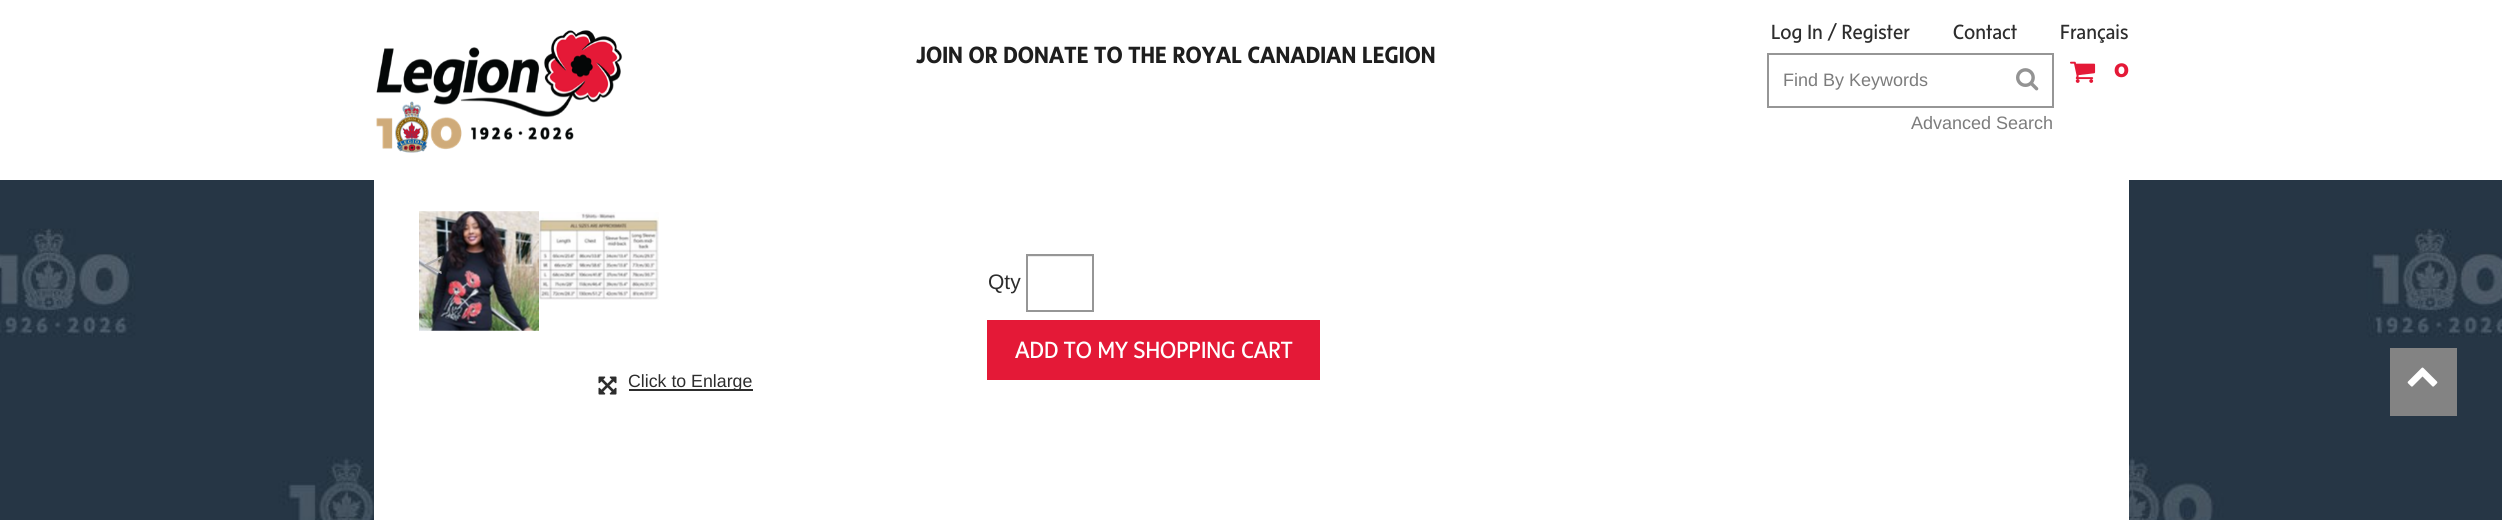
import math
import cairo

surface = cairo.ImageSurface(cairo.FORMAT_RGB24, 2502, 520)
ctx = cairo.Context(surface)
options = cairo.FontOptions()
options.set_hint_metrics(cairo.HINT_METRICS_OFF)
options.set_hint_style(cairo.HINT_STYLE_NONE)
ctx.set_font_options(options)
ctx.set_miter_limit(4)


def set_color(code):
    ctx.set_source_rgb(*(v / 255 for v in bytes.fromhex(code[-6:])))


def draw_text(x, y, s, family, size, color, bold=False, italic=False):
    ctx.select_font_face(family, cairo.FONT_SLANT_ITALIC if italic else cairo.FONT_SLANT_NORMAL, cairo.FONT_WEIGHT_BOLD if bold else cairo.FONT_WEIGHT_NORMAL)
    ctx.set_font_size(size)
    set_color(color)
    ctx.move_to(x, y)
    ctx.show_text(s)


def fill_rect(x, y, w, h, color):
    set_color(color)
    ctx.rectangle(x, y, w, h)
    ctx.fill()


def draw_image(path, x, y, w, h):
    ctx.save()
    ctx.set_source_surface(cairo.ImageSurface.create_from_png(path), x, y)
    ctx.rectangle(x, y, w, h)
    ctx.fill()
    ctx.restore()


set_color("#ffffff")
ctx.paint()
draw_image("assets/img1.png", 0, 180, 2502, 340)
draw_image("assets/img2.png", 376, 30, 247, 123)
draw_text(916, 63, "JOIN OR DONATE TO THE ROYAL CANADIAN LEGION", "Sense", 24, "#1e1e1e", bold=True)
draw_text(1771, 39, "Log In / Register", "Sense", 21, "#2d2d2d")
draw_text(1953, 39, "Contact", "Sense", 21, "#2d2d2d")
draw_text(2060, 39, "Français", "Sense", 21, "#2d2d2d")
draw_image("assets/img3.png", 2070, 61, 26, 22)
draw_text(2114, 77, "0", "Sense", 27, "#e41937", bold=True)
ctx.rectangle(1768, 54, 285, 53)
set_color("#969696")
ctx.stroke()
draw_text(1783, 86, "Find By Keywords", "Liberation Sans", 18, "#7c7c7c")
draw_image("assets/img4.png", 2016, 68, 23, 23)
draw_text(1911, 129, "Advanced Search", "Liberation Sans", 18, "#7c7c7c")
fill_rect(374, 180, 1755, 340, "#ffffff")
draw_image("assets/img5.png", 419, 211, 120, 120)
draw_image("assets/img6.png", 539, 212, 120, 88)
draw_text(423, 277, "<", "Liberation Serif", 36, "#b3b0b0", bold=True)
draw_image("assets/img7.png", 598, 376, 19, 19)
fill_rect(629, 389, 124, 2, "#2d2d2d")
draw_text(628, 387, "Click to Enlarge", "Liberation Sans", 17.75, "#2d2d2d")
draw_text(988, 289, "Qty", "Liberation Sans", 21, "#2d2d2d")
fill_rect(1028, 256, 64, 1, "#ececec")
ctx.rectangle(1027, 255, 66, 56)
set_color("#969696")
ctx.stroke()
fill_rect(987, 320, 333, 60, "#e41937")
draw_text(1015, 358, "ADD TO MY SHOPPING CART", "Sense", 24, "#ffffff")
fill_rect(2390, 348, 67, 68, "#838383")
draw_image("assets/img8.png", 2407, 367, 31, 20)
surface.write_to_png("output.png")
